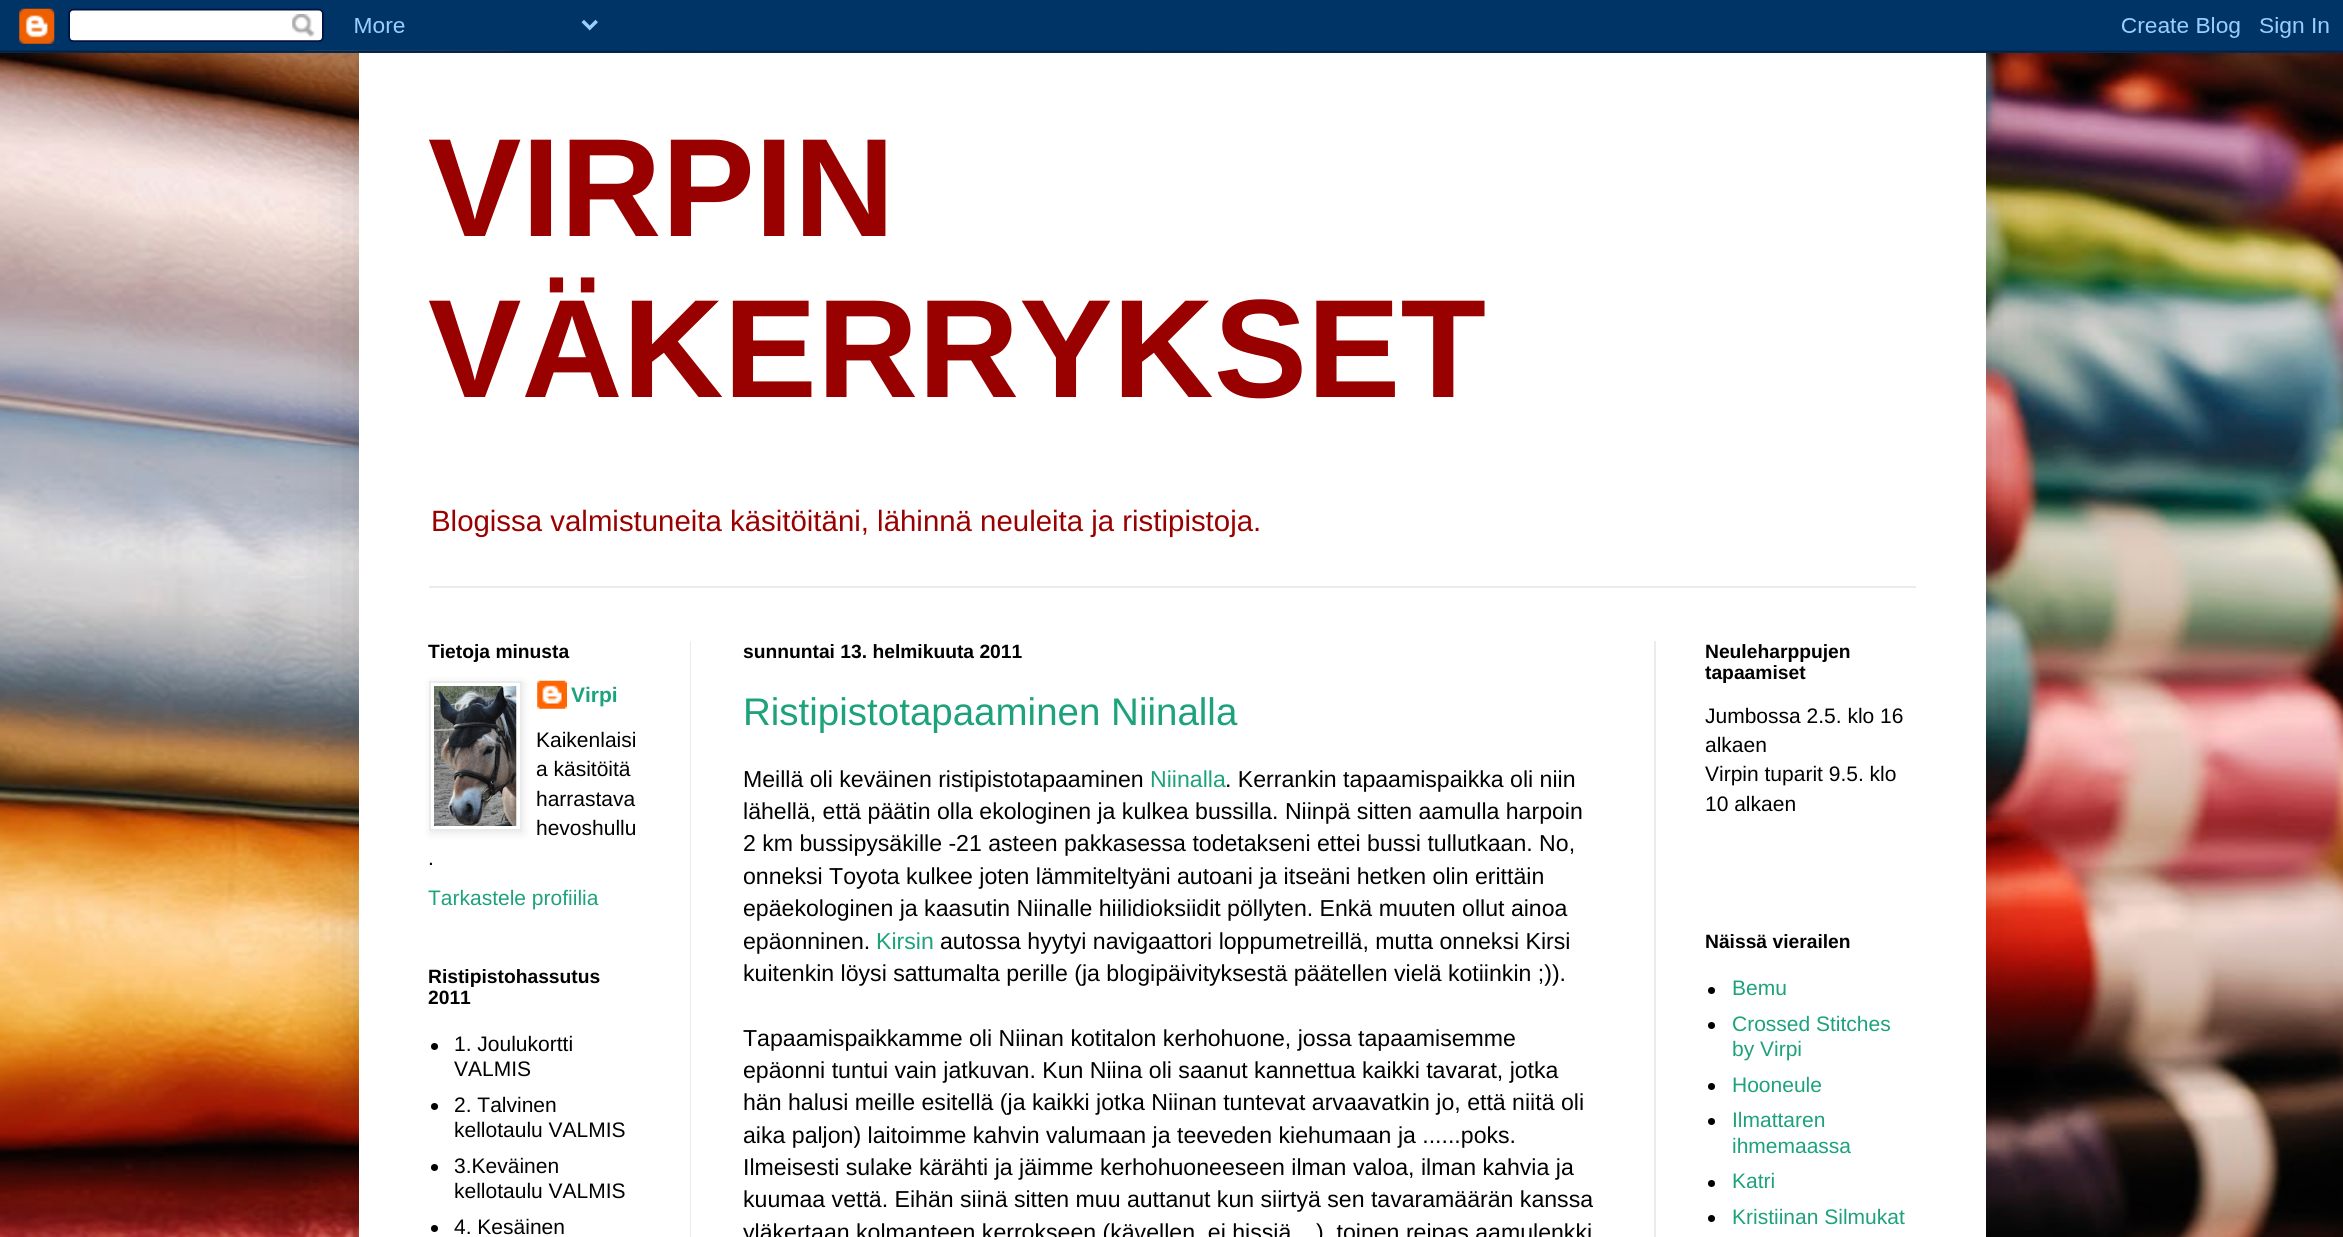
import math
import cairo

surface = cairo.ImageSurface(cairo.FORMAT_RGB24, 2343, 1237)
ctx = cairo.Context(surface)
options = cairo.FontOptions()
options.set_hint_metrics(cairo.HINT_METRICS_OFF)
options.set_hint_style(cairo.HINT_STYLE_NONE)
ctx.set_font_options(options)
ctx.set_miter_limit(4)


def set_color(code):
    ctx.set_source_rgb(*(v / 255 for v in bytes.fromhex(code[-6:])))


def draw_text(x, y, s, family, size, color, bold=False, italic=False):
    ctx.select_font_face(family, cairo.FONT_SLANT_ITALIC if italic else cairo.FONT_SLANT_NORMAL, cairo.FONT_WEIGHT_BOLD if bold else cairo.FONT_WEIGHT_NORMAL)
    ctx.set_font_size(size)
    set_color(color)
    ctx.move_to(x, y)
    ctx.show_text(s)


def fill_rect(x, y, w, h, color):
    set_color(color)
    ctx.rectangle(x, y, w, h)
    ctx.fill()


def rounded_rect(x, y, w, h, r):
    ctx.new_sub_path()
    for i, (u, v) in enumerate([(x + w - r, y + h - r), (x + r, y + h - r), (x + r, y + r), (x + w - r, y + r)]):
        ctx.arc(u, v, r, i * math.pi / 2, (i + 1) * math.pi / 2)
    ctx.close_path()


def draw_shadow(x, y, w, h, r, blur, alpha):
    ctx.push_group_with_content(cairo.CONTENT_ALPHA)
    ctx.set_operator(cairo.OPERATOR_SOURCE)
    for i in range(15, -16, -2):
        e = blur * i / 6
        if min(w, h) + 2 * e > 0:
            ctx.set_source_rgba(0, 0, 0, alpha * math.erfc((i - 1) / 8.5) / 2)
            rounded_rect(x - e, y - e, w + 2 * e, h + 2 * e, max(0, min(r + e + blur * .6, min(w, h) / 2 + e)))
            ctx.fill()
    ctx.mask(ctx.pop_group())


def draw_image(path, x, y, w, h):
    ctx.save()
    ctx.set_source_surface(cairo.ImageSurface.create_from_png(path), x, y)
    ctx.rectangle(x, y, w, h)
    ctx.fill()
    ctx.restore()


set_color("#ffffff")
ctx.paint()
draw_image("assets/img1.png", 0, 50, 2343, 1187)
set_color("#000000")
draw_shadow(359, 53, 1627, 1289, 0, 35, 0.15)
draw_image("assets/img2.png", 0, 0, 2343, 53)
fill_rect(359, 53, 1627, 1184, "#ffffff")
draw_text(428, 236, "VIRPIN", "Liberation Sans", 140, "#990000", bold=True)
draw_text(428, 397, "VÄKERRYKSET", "Liberation Sans", 140, "#990000", bold=True)
draw_text(431, 531, "Blogissa valmistuneita käsitöitäni, lähinnä neuleita ja ristipistoja.", "Liberation Sans", 29.4, "#990000")
fill_rect(429, 586, 1487, 2, "#ebebeb")
fill_rect(690, 641, 1, 596, "#ebebeb")
fill_rect(1654, 641, 2, 596, "#ebebeb")
draw_text(428, 658, "Tietoja minusta", "Liberation Sans", 19.25, "#000000", bold=True)
draw_image("assets/img4.png", 537, 680, 30, 29)
set_color("#000000")
draw_shadow(431, 683, 92, 150, 0, 4.5, 0.1)
set_color("#ffffff")
ctx.rectangle(430, 682, 91, 148)
ctx.fill_preserve()
set_color("#ebebeb")
ctx.stroke()
draw_image("assets/img3.png", 434, 686, 83, 140)
draw_text(571, 702, "Virpi", "Liberation Sans", 21, "#1da27c", bold=True)
draw_text(536, 747, "Kaikenlaisi", "Liberation Sans", 21, "#000000")
draw_text(536, 776, "a käsitöitä", "Liberation Sans", 21, "#000000")
draw_text(536, 806, "harrastava", "Liberation Sans", 21, "#000000")
draw_text(536, 835, "hevoshullu", "Liberation Sans", 21, "#000000")
draw_text(428, 865, ".", "Liberation Sans", 21, "#000000")
draw_text(428, 905, "Tarkastele profiilia", "Liberation Sans", 21, "#1da27c")
draw_text(428, 983, "Ristipistohassutus", "Liberation Sans", 19.25, "#000000", bold=True)
draw_text(428, 1004, "2011", "Liberation Sans", 19.25, "#000000", bold=True)
ctx.new_path()
ctx.arc(434.5, 1046.5, 3.5, 0, 2 * math.pi)
ctx.fill()
draw_text(454, 1051, "1. Joulukortti", "Liberation Sans", 21, "#000000")
draw_text(454, 1076, "VALMIS", "Liberation Sans", 21, "#000000")
ctx.new_path()
ctx.arc(434.5, 1106.5, 3.5, 0, 2 * math.pi)
ctx.fill()
draw_text(454, 1112, "2. Talvinen", "Liberation Sans", 21, "#000000")
draw_text(454, 1137, "kellotaulu VALMIS", "Liberation Sans", 21, "#000000")
ctx.new_path()
ctx.arc(434.5, 1167.5, 3.5, 0, 2 * math.pi)
ctx.fill()
draw_text(454, 1173, "3.Keväinen", "Liberation Sans", 21, "#000000")
draw_text(454, 1198, "kellotaulu VALMIS", "Liberation Sans", 21, "#000000")
ctx.new_path()
ctx.arc(434.5, 1228.5, 3.5, 0, 2 * math.pi)
ctx.fill()
draw_text(454, 1234, "4. Kesäinen", "Liberation Sans", 21, "#000000")
draw_text(743, 658, "sunnuntai 13. helmikuuta 2011", "Liberation Sans", 19.25, "#000000", bold=True)
draw_text(743, 725, "Ristipistotapaaminen Niinalla", "Liberation Sans", 38.5, "#1da27c")
draw_text(743, 787, "Meillä oli keväinen ristipistotapaaminen", "Liberation Sans", 23.1, "#000000")
draw_text(1150, 787, "Niinalla", "Liberation Sans", 23.1, "#1da27c")
draw_text(1225, 787, ". Kerrankin tapaamispaikka oli niin", "Liberation Sans", 23.1, "#000000")
draw_text(743, 819, "lähellä, että päätin olla ekologinen ja kulkea bussilla. Niinpä sitten aamulla harpoin", "Liberation Sans", 23.1, "#000000")
draw_text(743, 851, "2 km bussipysäkille -21 asteen pakkasessa todetakseni ettei bussi tullutkaan. No,", "Liberation Sans", 23.1, "#000000")
draw_text(743, 884, "onneksi Toyota kulkee joten lämmiteltyäni autoani ja itseäni hetken olin erittäin", "Liberation Sans", 23.1, "#000000")
draw_text(743, 916, "epäekologinen ja kaasutin Niinalle hiilidioksiidit pöllyten. Enkä muuten ollut ainoa", "Liberation Sans", 23.1, "#000000")
draw_text(743, 949, "epäonninen.", "Liberation Sans", 23.1, "#000000")
draw_text(876, 949, "Kirsin", "Liberation Sans", 23.1, "#1da27c")
draw_text(940, 949, "autossa hyytyi navigaattori loppumetreillä, mutta onneksi Kirsi", "Liberation Sans", 23.1, "#000000")
draw_text(743, 981, "kuitenkin löysi sattumalta perille (ja blogipäivityksestä päätellen vielä kotiinkin ;)).", "Liberation Sans", 23.1, "#000000")
draw_text(743, 1046, "Tapaamispaikkamme oli Niinan kotitalon kerhohuone, jossa tapaamisemme", "Liberation Sans", 23.1, "#000000")
draw_text(743, 1078, "epäonni tuntui vain jatkuvan. Kun Niina oli saanut kannettua kaikki tavarat, jotka", "Liberation Sans", 23.1, "#000000")
draw_text(743, 1110, "hän halusi meille esitellä (ja kaikki jotka Niinan tuntevat arvaavatkin jo, että niitä oli", "Liberation Sans", 23.1, "#000000")
draw_text(743, 1143, "aika paljon) laitoimme kahvin valumaan ja teeveden kiehumaan ja ......poks.", "Liberation Sans", 23.1, "#000000")
draw_text(743, 1175, "Ilmeisesti sulake kärähti ja jäimme kerhohuoneeseen ilman valoa, ilman kahvia ja", "Liberation Sans", 23.1, "#000000")
draw_text(743, 1207, "kuumaa vettä. Eihän siinä sitten muu auttanut kun siirtyä sen tavaramäärän kanssa", "Liberation Sans", 23.1, "#000000")
draw_text(743, 1240, "yläkertaan kolmanteen kerrokseen (kävellen, ei hissiä", "Liberation Sans", 23.1, "#000000")
draw_text(1316, 1240, "), toinen reipas aamulenkki", "Liberation Sans", 23.1, "#000000")
draw_text(1705, 658, "Neuleharppujen", "Liberation Sans", 19.25, "#000000", bold=True)
draw_text(1705, 679, "tapaamiset", "Liberation Sans", 19.25, "#000000", bold=True)
draw_text(1705, 723, "Jumbossa 2.5. klo 16", "Liberation Sans", 21, "#000000")
draw_text(1705, 752, "alkaen", "Liberation Sans", 21, "#000000")
draw_text(1705, 781, "Virpin tuparit 9.5. klo", "Liberation Sans", 21, "#000000")
draw_text(1705, 811, "10 alkaen", "Liberation Sans", 21, "#000000")
draw_text(1705, 948, "Näissä vierailen", "Liberation Sans", 19.25, "#000000", bold=True)
ctx.new_path()
ctx.arc(1711.5, 990.5, 3.5, 0, 2 * math.pi)
ctx.fill()
draw_text(1732, 995, "Bemu", "Liberation Sans", 21, "#1da27c")
set_color("#000000")
ctx.new_path()
ctx.arc(1711.5, 1025.5, 3.5, 0, 2 * math.pi)
ctx.fill()
draw_text(1732, 1031, "Crossed Stitches", "Liberation Sans", 21, "#1da27c")
draw_text(1732, 1056, "by Virpi", "Liberation Sans", 21, "#1da27c")
set_color("#000000")
ctx.new_path()
ctx.arc(1711.5, 1086.5, 3.5, 0, 2 * math.pi)
ctx.fill()
draw_text(1732, 1092, "Hooneule", "Liberation Sans", 21, "#1da27c")
set_color("#000000")
ctx.new_path()
ctx.arc(1711.5, 1121.5, 3.5, 0, 2 * math.pi)
ctx.fill()
draw_text(1732, 1127, "Ilmattaren", "Liberation Sans", 21, "#1da27c")
draw_text(1732, 1153, "ihmemaassa", "Liberation Sans", 21, "#1da27c")
set_color("#000000")
ctx.new_path()
ctx.arc(1711.5, 1183.5, 3.5, 0, 2 * math.pi)
ctx.fill()
draw_text(1732, 1188, "Katri", "Liberation Sans", 21, "#1da27c")
set_color("#000000")
ctx.new_path()
ctx.arc(1711.5, 1218.5, 3.5, 0, 2 * math.pi)
ctx.fill()
draw_text(1732, 1224, "Kristiinan Silmukat", "Liberation Sans", 21, "#1da27c")
surface.write_to_png("output.png")
